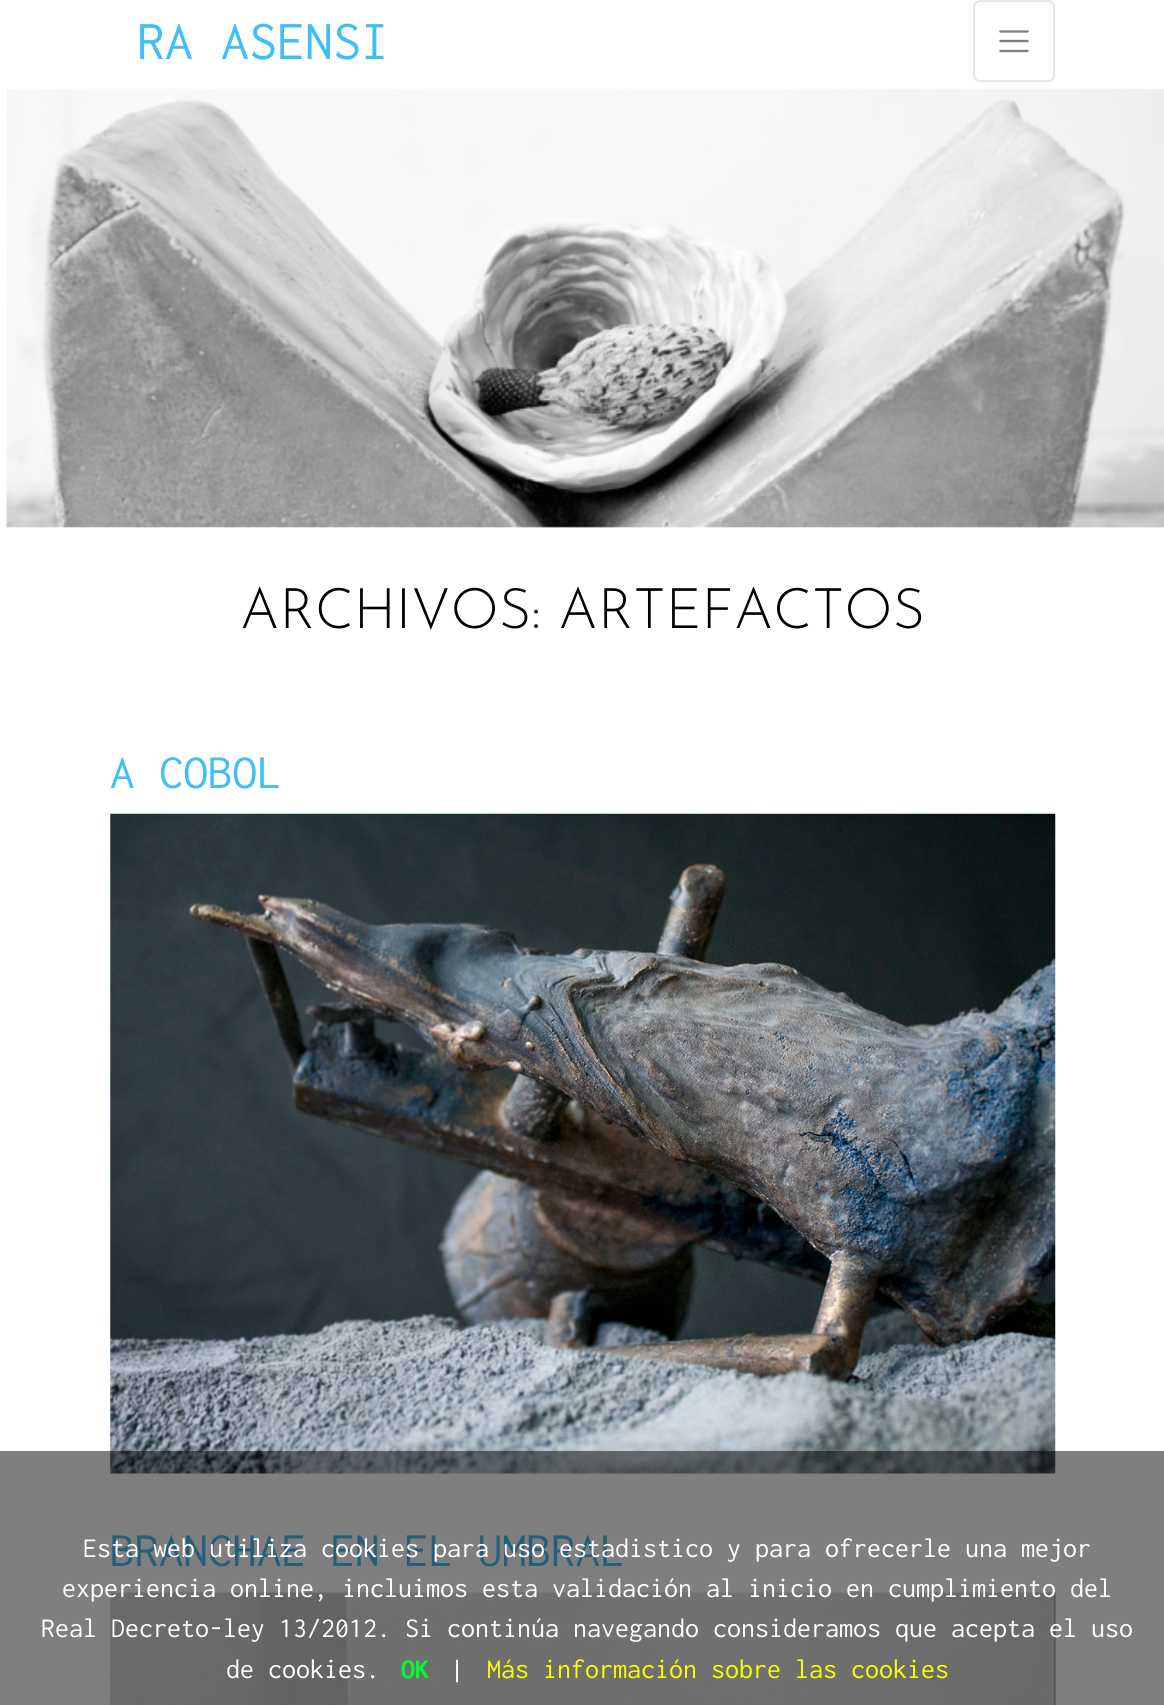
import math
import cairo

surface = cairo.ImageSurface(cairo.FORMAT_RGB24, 1164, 1705)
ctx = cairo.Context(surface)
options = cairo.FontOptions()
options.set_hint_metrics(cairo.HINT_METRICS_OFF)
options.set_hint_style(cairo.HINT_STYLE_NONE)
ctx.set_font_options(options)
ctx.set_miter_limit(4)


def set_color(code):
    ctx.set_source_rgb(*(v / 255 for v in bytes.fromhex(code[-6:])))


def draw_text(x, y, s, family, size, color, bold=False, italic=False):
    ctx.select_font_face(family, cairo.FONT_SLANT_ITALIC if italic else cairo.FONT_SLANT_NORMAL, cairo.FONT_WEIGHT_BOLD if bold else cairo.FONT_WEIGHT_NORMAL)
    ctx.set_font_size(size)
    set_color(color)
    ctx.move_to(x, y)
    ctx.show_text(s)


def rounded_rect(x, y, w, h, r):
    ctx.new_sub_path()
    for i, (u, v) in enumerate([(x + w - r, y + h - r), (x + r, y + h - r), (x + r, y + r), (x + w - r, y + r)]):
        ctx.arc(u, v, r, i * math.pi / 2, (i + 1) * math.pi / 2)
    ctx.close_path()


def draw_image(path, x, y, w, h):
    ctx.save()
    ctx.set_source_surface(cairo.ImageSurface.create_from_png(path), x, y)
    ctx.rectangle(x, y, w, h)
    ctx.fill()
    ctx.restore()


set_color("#ffffff")
ctx.paint()
draw_text(137, 59, "RA ASENSI", "Inconsolata", 56, "#42bef7")
rounded_rect(974, 1, 80, 80, 6)
set_color("#e6e6e6")
ctx.stroke()
ctx.new_path()
ctx.move_to(1000.5, 31.5)
ctx.line_to(1027.5, 31.5)
ctx.move_to(1000.5, 41)
ctx.line_to(1027.5, 41)
ctx.move_to(1000.5, 51)
ctx.line_to(1027.5, 51)
set_color("#808080")
ctx.set_line_width(2.4)
ctx.set_line_cap(cairo.LINE_CAP_ROUND)
ctx.stroke()
draw_image("assets/img1.png", 6, 88, 1158, 440)
draw_text(240, 628, "ARCHIVOS: ARTEFACTOS", "Josefin Sans Light", 56, "#000000")
draw_text(110, 788, "A COBOL", "Inconsolata", 49, "#42bef7")
draw_image("assets/img2.png", 110, 813, 946, 661)
draw_text(110, 1566, "BRANCHAE EN EL UMBRAL", "Inconsolata", 49, "#42bef7")
draw_image("assets/img3.png", 110, 1592, 946, 113)
ctx.set_source_rgba(0, 0, 0, 0.5)
ctx.rectangle(0, 1451, 1164, 254)
ctx.fill()
draw_text(83, 1557, "Esta web utiliza cookies para uso estadistico y para ofrecerle una mejor", "Inconsolata", 28, "#ffffff")
draw_text(62, 1597, "experiencia online, incluimos esta validación al inicio en cumplimiento del", "Inconsolata", 28, "#ffffff")
draw_text(41, 1637, "Real Decreto-ley 13/2012. Si continúa navegando consideramos que acepta el uso", "Inconsolata", 28, "#ffffff")
draw_text(226, 1678, "de cookies.", "Inconsolata", 28, "#ffffff")
draw_text(401, 1678, "OK", "Inconsolata", 28, "#00ff2e", bold=True)
draw_text(450, 1678, "|", "Inconsolata", 28, "#ffffff")
draw_text(487, 1678, "Más información sobre las cookies", "Inconsolata", 28, "#faff00")
surface.write_to_png("output.png")
